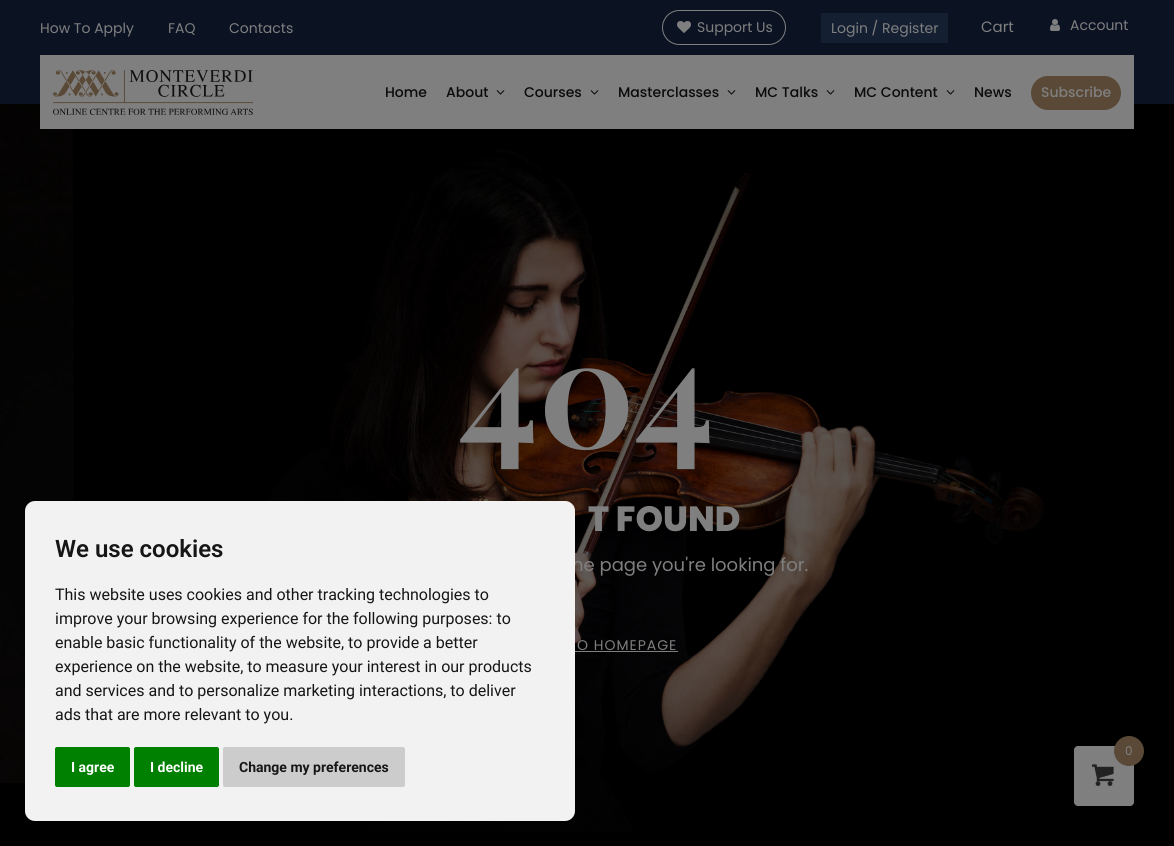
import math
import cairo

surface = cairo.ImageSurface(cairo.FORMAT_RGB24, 1174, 846)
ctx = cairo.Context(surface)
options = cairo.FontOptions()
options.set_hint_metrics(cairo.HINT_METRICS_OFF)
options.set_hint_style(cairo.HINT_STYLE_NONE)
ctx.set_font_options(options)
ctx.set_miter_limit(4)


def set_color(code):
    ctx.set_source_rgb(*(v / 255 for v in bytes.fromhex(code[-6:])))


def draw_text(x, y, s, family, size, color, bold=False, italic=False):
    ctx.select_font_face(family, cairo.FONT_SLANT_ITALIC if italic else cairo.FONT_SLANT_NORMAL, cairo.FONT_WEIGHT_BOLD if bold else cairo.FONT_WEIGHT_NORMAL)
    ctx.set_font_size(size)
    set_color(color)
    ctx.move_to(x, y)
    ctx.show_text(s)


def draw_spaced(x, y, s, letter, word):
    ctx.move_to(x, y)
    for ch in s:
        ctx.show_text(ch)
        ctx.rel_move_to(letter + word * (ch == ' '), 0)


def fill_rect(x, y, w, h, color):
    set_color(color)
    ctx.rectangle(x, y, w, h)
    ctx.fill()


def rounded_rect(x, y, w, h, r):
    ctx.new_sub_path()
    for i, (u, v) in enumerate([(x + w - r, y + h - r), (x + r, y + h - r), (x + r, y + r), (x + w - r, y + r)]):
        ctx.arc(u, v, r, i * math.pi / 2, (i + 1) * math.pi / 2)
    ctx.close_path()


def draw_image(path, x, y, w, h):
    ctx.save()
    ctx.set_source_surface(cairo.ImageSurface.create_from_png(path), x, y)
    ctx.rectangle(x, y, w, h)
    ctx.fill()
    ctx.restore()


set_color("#ffffff")
ctx.paint()
fill_rect(0, 0, 1174, 104, "#162647")
draw_text(40, 33, "How To Apply", "Poppins", 14, "#ffffff")
draw_text(168, 33, "FAQ", "Poppins", 14, "#ffffff")
draw_text(229, 33, "Contacts", "Poppins", 14, "#ffffff")
rounded_rect(662.5, 10.5, 123, 34, 17)
ctx.set_line_width(1)
ctx.stroke()
draw_image("assets/img1.png", 677, 21, 14, 12)
draw_text(697, 32, "Support Us", "Poppins", 14, "#ffffff")
fill_rect(821, 13, 127, 30, "#2b3f65")
draw_text(831, 33, "Login / Register", "Poppins", 14, "#ffffff")
draw_text(981, 32, "Cart", "Poppins", 15, "#ffffff")
draw_image("assets/img2.png", 1050, 19, 10, 12)
draw_text(1070, 30, "Account", "Poppins", 14, "#ffffff")
draw_image("assets/img5.png", 0, 104, 1174, 742)
fill_rect(40, 55, 1094, 74, "#ffffff")
draw_image("assets/img3.png", 53, 70, 200, 45)
draw_text(385, 97, "Home", "Poppins Medium", 14, "#161616")
draw_text(446, 97, "About", "Poppins Medium", 14, "#161616")
draw_image("assets/img4.png", 496, 90, 9, 5)
draw_text(524, 97, "Courses", "Poppins Medium", 14, "#161616")
draw_image("assets/img4.png", 590, 90, 9, 5)
draw_text(618, 97, "Masterclasses", "Poppins Medium", 14, "#161616")
draw_image("assets/img4.png", 727, 90, 9, 5)
draw_text(755, 97, "MC Talks", "Poppins Medium", 14, "#161616")
draw_image("assets/img4.png", 826, 90, 9, 5)
draw_text(854, 97, "MC Content", "Poppins Medium", 14, "#161616")
draw_image("assets/img4.png", 946, 90, 9, 5)
draw_text(974, 97, "News", "Poppins Medium", 14, "#161616")
set_color("#b2936d")
rounded_rect(1031, 76, 90, 34, 17)
ctx.fill()
draw_text(1041, 97, "Subscribe", "Poppins Medium", 14, "#ffffff")
draw_text(459, 448, "404", "Playfair Display", 150, "#ffffff", bold=True)
draw_text(588, 531, "T FOUND", "Poppins ExtraBold", 35, "#ffffff")
draw_text(572, 571, "he page you're looking for.", "Poppins", 18, "#ffffff")
ctx.set_font_size(14)
draw_spaced(577, 650, "O HOMEPAGE", 1, 0)
fill_rect(575, 651, 103, 1, "#ffffff")
rounded_rect(1074, 746, 60, 60, 4)
ctx.fill()
set_color("#b2936d")
ctx.arc(1129, 751, 15, 0, 2 * math.pi)
ctx.fill()
draw_text(1125, 755, "0", "Poppins", 12, "#ffffff")
draw_image("assets/img6.png", 1092, 764, 22, 22)
rounded_rect(-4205, -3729, 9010, 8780, 4240)
ctx.set_source_rgba(0, 0, 0, 0.5)
ctx.set_line_width(8460)
ctx.stroke()
set_color("#f2f2f2")
rounded_rect(25, 501, 550, 320, 10)
ctx.fill()
draw_text(55, 557, "We use cookies", "Roboto SemiBold", 24, "#161616")
draw_text(55, 600, "This website uses cookies and other tracking technologies to", "Roboto", 16, "#161616")
draw_text(55, 624, "improve your browsing experience for the following purposes: to", "Roboto", 16, "#161616")
draw_text(55, 648, "enable basic functionality of the website, to provide a better", "Roboto", 16, "#161616")
draw_text(55, 672, "experience on the website, to measure your interest in our products", "Roboto", 16, "#161616")
draw_text(55, 696, "and services and to personalize marketing interactions, to deliver", "Roboto", 16, "#161616")
draw_text(55, 720, "ads that are more relevant to you.", "Roboto", 16, "#161616")
set_color("#008000")
rounded_rect(55, 747, 75, 40, 2)
ctx.fill()
draw_text(71, 772, "I agree", "Roboto", 14, "#ffffff", bold=True)
set_color("#008000")
rounded_rect(134, 747, 85, 40, 2)
ctx.fill()
draw_text(150, 772, "I decline", "Roboto", 14, "#ffffff", bold=True)
set_color("#cccccc")
rounded_rect(223, 747, 182, 40, 2)
ctx.fill()
draw_text(239, 772, "Change my preferences", "Roboto", 14, "#161616", bold=True)
surface.write_to_png("output.png")
